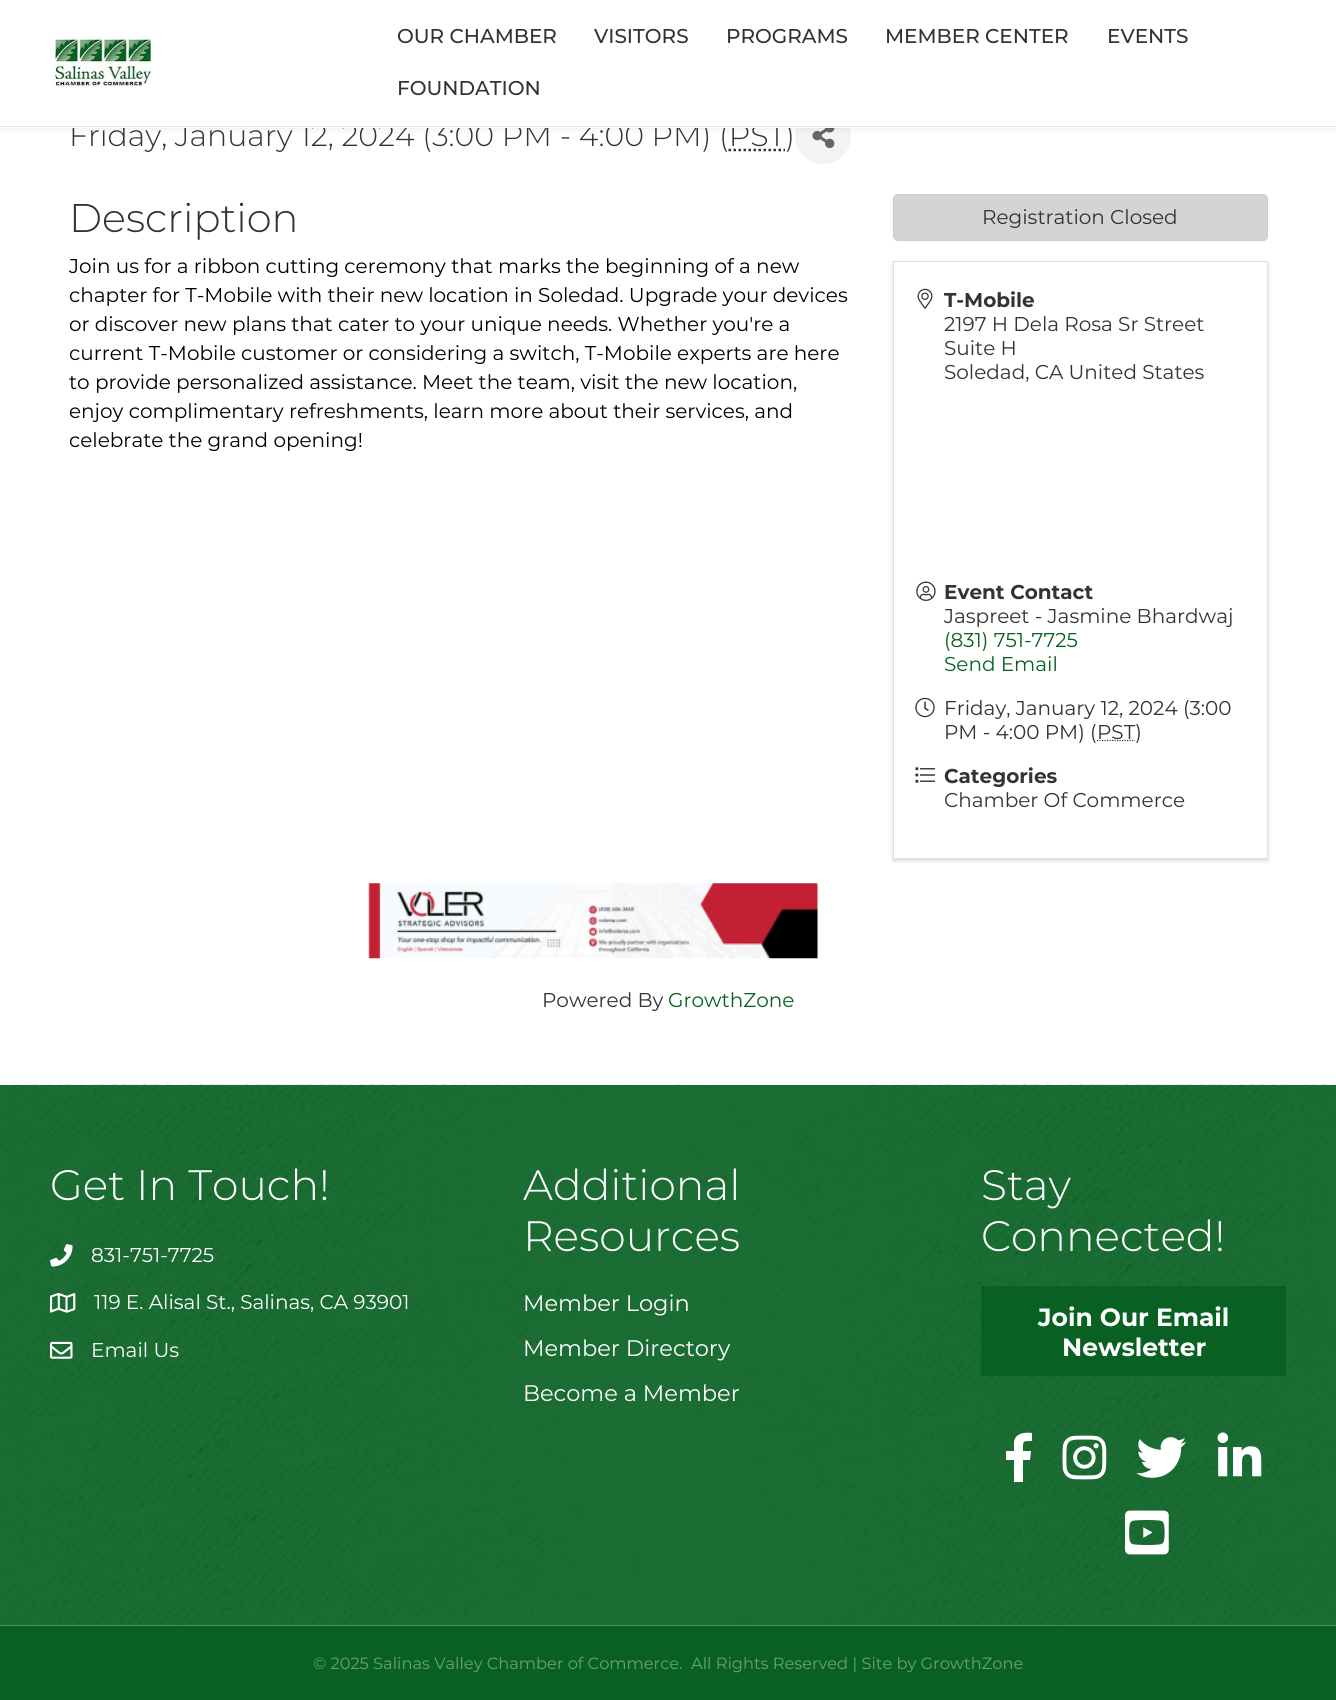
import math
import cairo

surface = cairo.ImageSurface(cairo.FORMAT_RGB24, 1336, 1700)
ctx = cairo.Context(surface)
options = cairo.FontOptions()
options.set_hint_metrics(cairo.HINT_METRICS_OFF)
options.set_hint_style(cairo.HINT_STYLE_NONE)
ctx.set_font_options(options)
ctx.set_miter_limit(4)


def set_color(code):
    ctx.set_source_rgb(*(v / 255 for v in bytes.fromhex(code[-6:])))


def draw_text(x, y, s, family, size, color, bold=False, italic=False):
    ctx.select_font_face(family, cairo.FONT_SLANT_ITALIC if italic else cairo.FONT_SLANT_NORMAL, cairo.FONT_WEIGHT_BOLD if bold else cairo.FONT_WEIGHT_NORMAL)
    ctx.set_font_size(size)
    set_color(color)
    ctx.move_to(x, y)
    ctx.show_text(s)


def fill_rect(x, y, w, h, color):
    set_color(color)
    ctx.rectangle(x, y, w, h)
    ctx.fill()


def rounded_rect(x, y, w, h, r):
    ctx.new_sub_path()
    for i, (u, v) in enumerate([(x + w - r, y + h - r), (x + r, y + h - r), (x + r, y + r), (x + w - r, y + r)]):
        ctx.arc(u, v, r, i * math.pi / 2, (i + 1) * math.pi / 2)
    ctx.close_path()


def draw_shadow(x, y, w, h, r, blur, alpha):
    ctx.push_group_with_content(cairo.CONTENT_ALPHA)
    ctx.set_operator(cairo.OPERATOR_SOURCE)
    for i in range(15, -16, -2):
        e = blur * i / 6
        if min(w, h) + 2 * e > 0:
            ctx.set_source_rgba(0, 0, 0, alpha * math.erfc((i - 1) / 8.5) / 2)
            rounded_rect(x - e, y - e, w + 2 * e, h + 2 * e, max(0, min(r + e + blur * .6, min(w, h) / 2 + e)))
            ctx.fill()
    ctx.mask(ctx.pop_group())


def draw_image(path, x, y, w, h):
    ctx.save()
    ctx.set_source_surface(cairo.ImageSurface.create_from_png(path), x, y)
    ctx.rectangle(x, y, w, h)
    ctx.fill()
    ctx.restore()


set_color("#ffffff")
ctx.paint()
set_color("#f3f3f3")
ctx.arc(823, 136, 28, 0, 2 * math.pi)
ctx.fill()
draw_image("assets/img2.png", 812, 128, 23, 21)
set_color("#000000")
draw_shadow(0, 0, 1336, 128, 0, 4.5, 0.1)
draw_text(69, 146, "Friday, January 12, 2024 (3:00 PM - 4:00 PM) (PST)", "Montserrat Light", 30, "#333333")
fill_rect(0, 0, 1336, 128, "#ffffff")
fill_rect(0, 126, 1336, 1, "#e4e4e4")
draw_image("assets/img1.png", 50, 36, 102, 52)
draw_text(397, 43, "OUR CHAMBER", "Montserrat Medium", 20, "#333333")
draw_text(594, 43, "VISITORS", "Montserrat Medium", 20, "#333333")
draw_text(726, 43, "PROGRAMS", "Montserrat Medium", 20, "#333333")
draw_text(885, 43, "MEMBER CENTER", "Montserrat Medium", 20, "#333333")
draw_text(1107, 43, "EVENTS", "Montserrat Medium", 20, "#333333")
draw_text(397, 95, "FOUNDATION", "Montserrat Medium", 20, "#333333")
ctx.new_path()
ctx.move_to(728.5, 150)
ctx.line_to(785, 150)
ctx.set_line_width(2.5)
ctx.set_dash([2.5, 2.5])
ctx.stroke()
draw_text(69, 232, "Description", "Montserrat Light", 40, "#333333")
draw_text(69, 273, "Join us for a ribbon cutting ceremony that marks the beginning of a new", "Montserrat", 20, "#000000")
draw_text(69, 302, "chapter for T-Mobile with their new location in Soledad. Upgrade your devices", "Montserrat", 20, "#000000")
draw_text(69, 331, "or discover new plans that cater to your unique needs. Whether you're a", "Montserrat", 20, "#000000")
draw_text(69, 360, "current T-Mobile customer or considering a switch, T-Mobile experts are here", "Montserrat", 20, "#000000")
draw_text(69, 389, "to provide personalized assistance. Meet the team, visit the new location,", "Montserrat", 20, "#000000")
draw_text(69, 418, "enjoy complimentary refreshments, learn more about their services, and", "Montserrat", 20, "#000000")
draw_text(69, 447, "celebrate the grand opening!", "Montserrat", 20, "#000000")
set_color("#d4d4d4")
rounded_rect(893.5, 194.5, 374, 46, 4.5)
ctx.fill_preserve()
set_color("#cdcdcd")
ctx.set_line_width(1)
ctx.set_dash([])
ctx.stroke()
draw_text(982, 224, "Registration Closed", "Montserrat", 20, "#333333")
set_color("#000000")
draw_shadow(893, 264, 375, 597, 0, 2, 0.15)
set_color("#ffffff")
ctx.rectangle(893.5, 261.5, 374, 597)
ctx.fill_preserve()
set_color("#dfdfdf")
ctx.stroke()
draw_image("assets/img3.png", 917, 288, 16, 21)
draw_text(944, 307, "T-Mobile", "Montserrat", 20, "#333333", bold=True)
draw_text(944, 331, "2197 H Dela Rosa Sr Street", "Montserrat", 20, "#333333")
draw_text(944, 355, "Suite H", "Montserrat", 20, "#333333")
draw_text(944, 379, "Soledad, CA United States", "Montserrat", 20, "#333333")
draw_image("assets/img4.png", 916, 581, 20, 20)
draw_text(944, 599, "Event Contact", "Montserrat", 20, "#333333", bold=True)
draw_text(944, 623, "Jaspreet - Jasmine Bhardwaj", "Montserrat", 20, "#333333")
draw_text(944, 647, "(831) 751-7725", "Montserrat", 20, "#086122")
draw_text(944, 671, "Send Email", "Montserrat", 20, "#086122")
draw_image("assets/img5.png", 915, 697, 20, 21)
draw_text(944, 715, "Friday, January 12, 2024 (3:00", "Montserrat", 20, "#333333")
draw_text(944, 739, "PM - 4:00 PM) (", "Montserrat", 20, "#333333")
ctx.new_path()
ctx.move_to(1097, 740.5)
ctx.line_to(1135, 740.5)
ctx.set_line_width(1.2)
ctx.set_dash([1.25, 1.25])
ctx.stroke()
draw_text(1097, 739, "PST)", "Montserrat", 20, "#333333")
draw_image("assets/img6.png", 915, 767, 20, 16)
draw_text(944, 783, "Categories", "Montserrat", 20, "#333333", bold=True)
draw_text(944, 807, "Chamber Of Commerce", "Montserrat", 20, "#333333")
draw_image("assets/img7.png", 368, 883, 450, 76)
draw_text(542, 1007, "Powered By", "Montserrat", 20, "#333333")
draw_text(668, 1007, "GrowthZone", "Montserrat", 20, "#086122")
draw_image("assets/img8.png", 0, 1084, 1336, 542)
draw_text(50, 1200, "Get In Touch!", "Montserrat Light", 42.5, "#ffffff")
draw_image("assets/img9.png", 50, 1244, 23, 23)
draw_text(91, 1262, "831-751-7725", "Montserrat", 20, "#ffffff")
draw_image("assets/img10.png", 50, 1293, 26, 20)
draw_text(94, 1309, "119 E. Alisal St., Salinas, CA 93901", "Montserrat", 20, "#ffffff")
draw_image("assets/img11.png", 50, 1341, 23, 18)
draw_text(91, 1357, "Email Us", "Montserrat", 20, "#ffffff")
draw_text(523, 1200, "Additional", "Montserrat Light", 42.5, "#ffffff")
draw_text(523, 1251, "Resources", "Montserrat Light", 42.5, "#ffffff")
draw_text(523, 1311, "Member Login", "Montserrat", 22.5, "#ffffff")
draw_text(523, 1356, "Member Directory", "Montserrat", 22.5, "#ffffff")
draw_text(523, 1401, "Become a Member", "Montserrat", 22.5, "#ffffff")
draw_text(981, 1200, "Stay", "Montserrat Light", 42.5, "#ffffff")
draw_text(981, 1251, "Connected!", "Montserrat Light", 42.5, "#ffffff")
fill_rect(981, 1286, 305, 90, "#086122")
draw_text(1038, 1326, "Join Our Email", "Montserrat", 25, "#ffffff", bold=True)
draw_text(1062, 1356, "Newsletter", "Montserrat", 25, "#ffffff", bold=True)
ctx.new_path()
ctx.move_to(1014, 1482)
ctx.line_to(1014, 1460)
ctx.line_to(1006, 1460)
ctx.line_to(1006, 1451)
ctx.line_to(1014, 1451)
ctx.line_to(1014, 1442)
ctx.curve_to(1015, 1433, 1025, 1432, 1032, 1433)
ctx.line_to(1032, 1441)
ctx.curve_to(1022, 1441, 1023, 1441, 1023, 1451)
ctx.line_to(1031, 1451)
ctx.line_to(1030, 1460)
ctx.line_to(1023, 1460)
ctx.line_to(1023, 1482)
ctx.close_path()
ctx.fill()
draw_image("assets/img12.png", 1062, 1435, 45, 45)
draw_image("assets/img13.png", 1136, 1437, 51, 41)
draw_image("assets/img14.png", 1217, 1432, 45, 45)
draw_image("assets/img15.png", 1125, 1510, 44, 45)
fill_rect(0, 1626, 1336, 74, "#086122")
draw_text(313, 1669, "© 2025 Salinas Valley Chamber of Commerce.", "Montserrat", 16.25, "#6ba07a")
draw_text(691, 1669, "All Rights Reserved | Site by GrowthZone", "Montserrat", 16.25, "#6ba07a")
surface.write_to_png("output.png")
